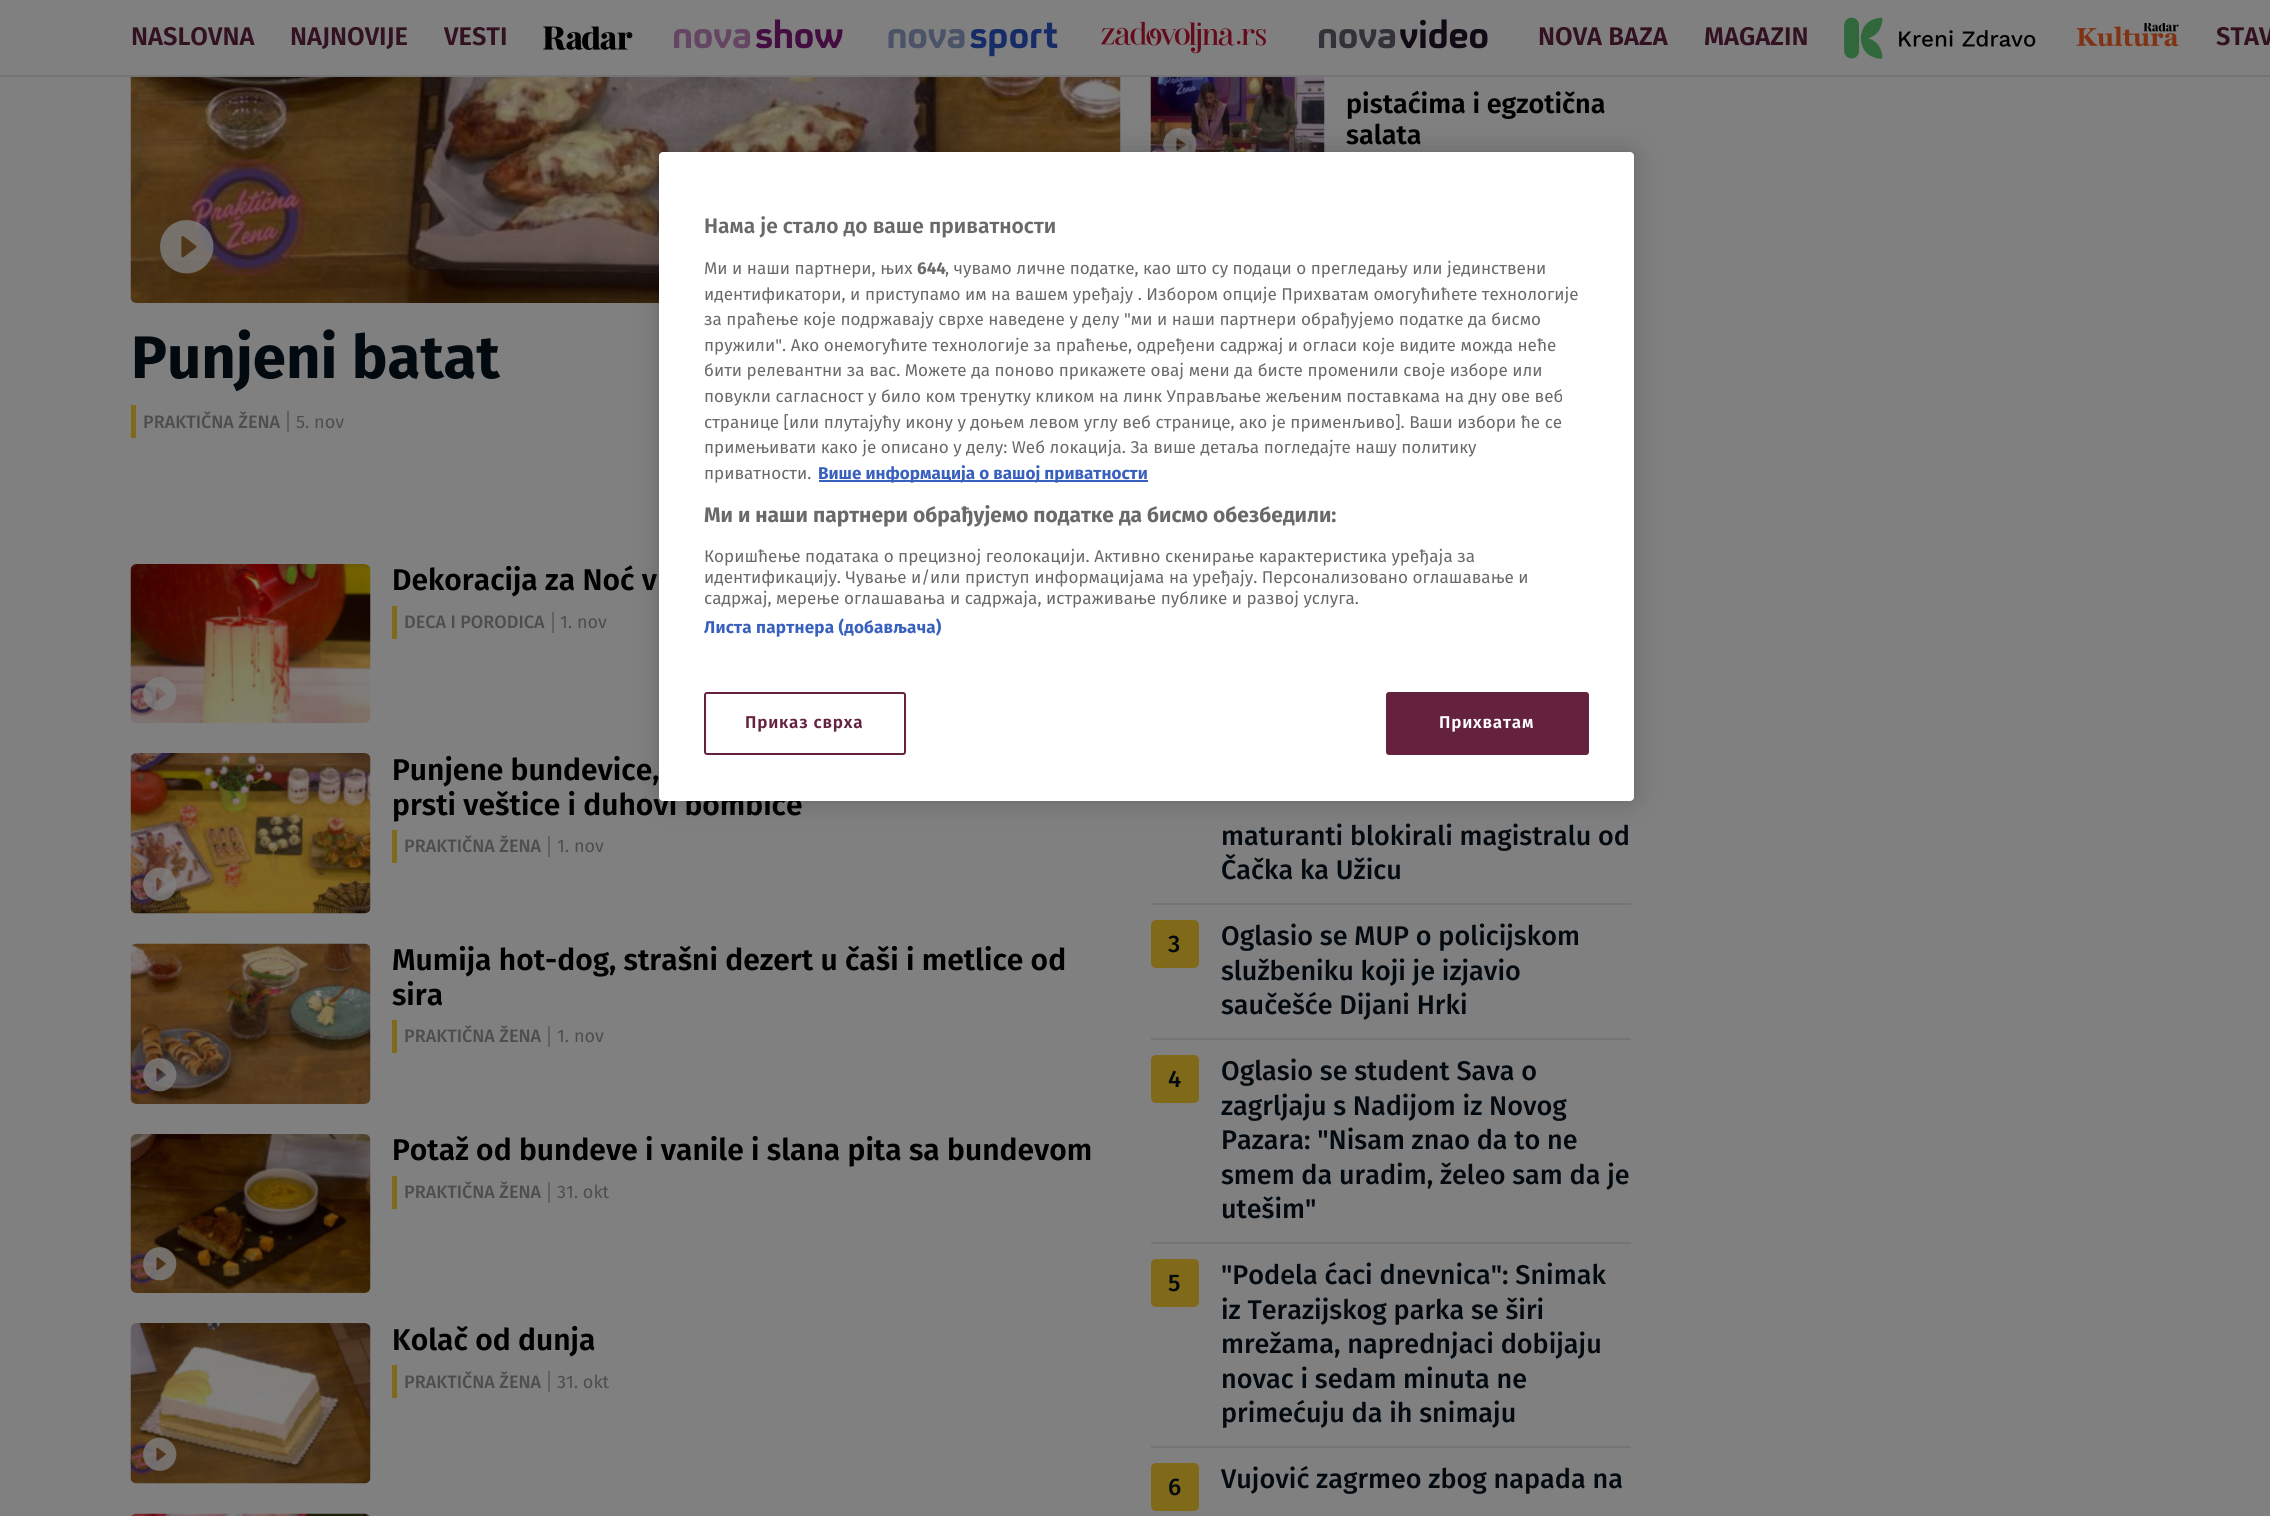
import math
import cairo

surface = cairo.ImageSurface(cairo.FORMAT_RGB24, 2270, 1516)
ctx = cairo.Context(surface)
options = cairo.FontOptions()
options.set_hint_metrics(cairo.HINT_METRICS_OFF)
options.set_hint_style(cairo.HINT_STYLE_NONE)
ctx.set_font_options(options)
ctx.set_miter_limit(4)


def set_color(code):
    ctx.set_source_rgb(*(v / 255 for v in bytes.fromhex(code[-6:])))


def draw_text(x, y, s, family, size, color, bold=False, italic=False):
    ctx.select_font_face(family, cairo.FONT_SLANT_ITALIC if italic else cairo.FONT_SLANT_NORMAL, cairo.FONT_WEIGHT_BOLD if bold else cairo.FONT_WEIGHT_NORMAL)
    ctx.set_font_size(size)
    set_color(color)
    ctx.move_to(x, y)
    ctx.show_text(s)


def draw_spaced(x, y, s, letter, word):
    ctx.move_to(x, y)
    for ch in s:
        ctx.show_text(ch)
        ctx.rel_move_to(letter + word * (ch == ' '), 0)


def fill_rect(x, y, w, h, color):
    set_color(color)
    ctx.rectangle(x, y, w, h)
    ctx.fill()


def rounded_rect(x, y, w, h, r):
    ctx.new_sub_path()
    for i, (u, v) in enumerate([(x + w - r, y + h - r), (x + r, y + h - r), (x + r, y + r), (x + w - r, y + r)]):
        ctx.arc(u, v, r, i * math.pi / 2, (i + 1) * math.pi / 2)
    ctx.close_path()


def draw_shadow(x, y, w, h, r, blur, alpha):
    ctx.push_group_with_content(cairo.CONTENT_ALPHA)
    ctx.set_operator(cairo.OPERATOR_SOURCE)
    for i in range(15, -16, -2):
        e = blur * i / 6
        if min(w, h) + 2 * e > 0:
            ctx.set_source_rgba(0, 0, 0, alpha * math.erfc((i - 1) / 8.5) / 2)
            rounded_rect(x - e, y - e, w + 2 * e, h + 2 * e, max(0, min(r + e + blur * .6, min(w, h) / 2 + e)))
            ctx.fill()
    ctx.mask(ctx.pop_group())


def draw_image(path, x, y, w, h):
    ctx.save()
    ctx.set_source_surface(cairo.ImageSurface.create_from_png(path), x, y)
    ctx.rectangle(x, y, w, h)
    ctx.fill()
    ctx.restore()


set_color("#808080")
ctx.paint()
fill_rect(0, 75, 2270, 2, "#747474")
draw_text(131, 45, "NASLOVNA", "Fira Sans SemiBold", 25.5, "#321120")
draw_text(290, 45, "NAJNOVIJE", "Fira Sans SemiBold", 25.5, "#321120")
draw_text(444, 45, "VESTI", "Fira Sans SemiBold", 25.5, "#321120")
draw_image("assets/img1.png", 543, 26, 90, 24)
draw_image("assets/img2.png", 674, 19, 169, 30)
draw_image("assets/img3.png", 888, 22, 170, 35)
draw_image("assets/img4.png", 1101, 21, 165, 33)
draw_image("assets/img5.png", 1319, 19, 169, 30)
draw_text(1538, 45, "NOVA BAZA", "Fira Sans SemiBold", 25.5, "#321120")
draw_text(1704, 45, "MAGAZIN", "Fira Sans SemiBold", 25.5, "#321120")
draw_image("assets/img6.png", 1844, 17, 192, 42)
draw_image("assets/img7.png", 2076, 23, 103, 24)
draw_text(2216, 45, "STAV", "Fira Sans SemiBold", 25.5, "#321120")
draw_image("assets/img8.png", 1150, 77, 175, 75)
draw_image("assets/img9.png", 1163, 128, 34, 24)
draw_text(1346, 113, "pistaćima i egzotična", "Fira Sans SemiBold", 27, "#000000")
draw_text(1346, 144, "salata", "Fira Sans SemiBold", 27, "#000000")
draw_image("assets/img10.png", 130, 77, 991, 226)
draw_image("assets/img11.png", 160, 220, 54, 54)
draw_text(131, 378, "Punjeni batat", "Fira Sans", 60, "#030a0f", bold=True)
fill_rect(131, 405, 5, 33, "#806a1a")
draw_text(143, 428, "PRAKTIČNA ŽENA", "Fira Sans Medium", 18, "#4d4d4d")
fill_rect(287, 411, 2, 21, "#626262")
draw_text(296, 428, "5. nov", "Fira Sans", 18, "#4d4d4d")
draw_image("assets/img12.png", 130, 564, 241, 159)
draw_image("assets/img13.png", 143, 677, 34, 34)
draw_text(392, 590, "Dekoracija za Noć v", "Fira Sans SemiBold", 30, "#000000")
fill_rect(392, 606, 5, 33, "#806a1a")
draw_text(404, 628, "DECA I PORODICA", "Fira Sans Medium", 18, "#4d4d4d")
fill_rect(552, 612, 2, 21, "#626262")
draw_text(560, 628, "1. nov", "Fira Sans", 18, "#4d4d4d")
draw_image("assets/img14.png", 130, 753, 241, 161)
draw_image("assets/img15.png", 143, 867, 34, 34)
draw_text(392, 780, "Punjene bundevice,", "Fira Sans SemiBold", 30, "#000000")
draw_text(392, 815, "prsti veštice i duhovi bombice", "Fira Sans SemiBold", 30, "#000000")
fill_rect(392, 830, 5, 33, "#806a1a")
draw_text(404, 852, "PRAKTIČNA ŽENA", "Fira Sans Medium", 18, "#4d4d4d")
fill_rect(548, 836, 2, 21, "#626262")
draw_text(557, 852, "1. nov", "Fira Sans", 18, "#4d4d4d")
draw_image("assets/img16.png", 130, 943, 241, 161)
draw_image("assets/img17.png", 143, 1058, 34, 34)
draw_text(392, 970, "Mumija hot-dog, strašni dezert u čaši i metlice od", "Fira Sans SemiBold", 30, "#000000")
draw_text(392, 1005, "sira", "Fira Sans SemiBold", 30, "#000000")
fill_rect(392, 1020, 5, 33, "#806a1a")
draw_text(404, 1042, "PRAKTIČNA ŽENA", "Fira Sans Medium", 18, "#4d4d4d")
fill_rect(548, 1026, 2, 21, "#626262")
draw_text(557, 1042, "1. nov", "Fira Sans", 18, "#4d4d4d")
draw_image("assets/img18.png", 130, 1134, 241, 159)
draw_image("assets/img19.png", 143, 1247, 34, 34)
draw_text(392, 1160, "Potaž od bundeve i vanile i slana pita sa bundevom", "Fira Sans SemiBold", 30, "#000000")
fill_rect(392, 1176, 5, 33, "#806a1a")
draw_text(404, 1198, "PRAKTIČNA ŽENA", "Fira Sans Medium", 18, "#4d4d4d")
fill_rect(548, 1182, 2, 21, "#626262")
draw_text(557, 1198, "31. okt", "Fira Sans", 18, "#4d4d4d")
draw_image("assets/img20.png", 130, 1323, 241, 161)
draw_image("assets/img21.png", 143, 1437, 34, 34)
draw_text(392, 1350, "Kolač od dunja", "Fira Sans SemiBold", 30, "#000000")
fill_rect(392, 1365, 5, 33, "#806a1a")
draw_text(404, 1388, "PRAKTIČNA ŽENA", "Fira Sans Medium", 18, "#4d4d4d")
fill_rect(548, 1371, 2, 21, "#626262")
draw_text(557, 1388, "31. okt", "Fira Sans", 18, "#4d4d4d")
draw_image("assets/img22.png", 131, 1513, 239, 3)
fill_rect(1151, 903, 480, 2, "#747474")
draw_text(1221, 845, "maturanti blokirali magistralu od", "Fira Sans Medium", 27, "#030a0f")
draw_text(1221, 879, "Čačka ka Užicu", "Fira Sans Medium", 27, "#030a0f")
fill_rect(1151, 1038, 480, 2, "#747474")
set_color("#806a1a")
rounded_rect(1151, 920, 48, 48, 5)
ctx.fill()
draw_text(1168, 952, "3", "Fira Sans Medium", 24, "#030a0f")
draw_text(1221, 945, "Oglasio se MUP o policijskom", "Fira Sans Medium", 27, "#030a0f")
draw_text(1221, 980, "službeniku koji je izjavio", "Fira Sans Medium", 27, "#030a0f")
draw_text(1221, 1014, "saučešće Dijani Hrki", "Fira Sans Medium", 27, "#030a0f")
fill_rect(1151, 1242, 480, 2, "#747474")
set_color("#806a1a")
rounded_rect(1151, 1055, 48, 48, 5)
ctx.fill()
draw_text(1168, 1087, "4", "Fira Sans Medium", 24, "#030a0f")
draw_text(1221, 1080, "Oglasio se student Sava o", "Fira Sans Medium", 27, "#030a0f")
draw_text(1221, 1115, "zagrljaju s Nadijom iz Novog", "Fira Sans Medium", 27, "#030a0f")
draw_text(1221, 1149, "Pazara: \"Nisam znao da to ne", "Fira Sans Medium", 27, "#030a0f")
draw_text(1221, 1184, "smem da uradim, želeo sam da je", "Fira Sans Medium", 27, "#030a0f")
draw_text(1221, 1218, "utešim\"", "Fira Sans Medium", 27, "#030a0f")
fill_rect(1151, 1446, 480, 2, "#747474")
set_color("#806a1a")
rounded_rect(1151, 1259, 48, 48, 5)
ctx.fill()
draw_text(1168, 1291, "5", "Fira Sans Medium", 24, "#030a0f")
draw_text(1221, 1284, "\"Podela ćaci dnevnica\": Snimak", "Fira Sans Medium", 27, "#030a0f")
draw_text(1221, 1319, "iz Terazijskog parka se širi", "Fira Sans Medium", 27, "#030a0f")
draw_text(1221, 1353, "mrežama, naprednjaci dobijaju", "Fira Sans Medium", 27, "#030a0f")
draw_text(1221, 1388, "novac i sedam minuta ne", "Fira Sans Medium", 27, "#030a0f")
draw_text(1221, 1422, "primećuju da ih snimaju", "Fira Sans Medium", 27, "#030a0f")
set_color("#806a1a")
rounded_rect(1151, 1463, 48, 48, 5)
ctx.fill()
draw_text(1168, 1495, "6", "Fira Sans Medium", 24, "#030a0f")
draw_text(1221, 1488, "Vujović zagrmeo zbog napada na", "Fira Sans Medium", 27, "#030a0f")
set_color("#000000")
draw_shadow(659, 152, 975, 649, 4, 13.5, 0.2)
set_color("#ffffff")
rounded_rect(659, 152, 975, 649, 4)
ctx.fill()
draw_text(704, 233, "Нама је стало до ваше приватности", "Fira Sans SemiBold", 21, "#696969")
draw_text(704, 274, "Ми и наши партнери, њих", "Fira Sans", 17.07, "#696969")
draw_text(917, 274, "644", "Fira Sans", 17.07, "#696969", bold=True)
draw_text(945, 274, ", чувамо личне податке, као што су подаци о прегледању или јединствени", "Fira Sans", 17.07, "#696969")
draw_text(704, 300, "идентификатори, и приступамо им на вашем уређају . Избором опције Прихватам омогућићете технологије", "Fira Sans", 17.07, "#696969")
draw_text(704, 325, "за праћење које подржавају сврхе наведене у делу \"ми и наши партнери обрађујемо податке да бисмо", "Fira Sans", 17.07, "#696969")
draw_text(704, 351, "пружили\". Ако онемогућите технологије за праћење, одређени садржај и огласи које видите можда неће", "Fira Sans", 17.07, "#696969")
draw_text(704, 376, "бити релевантни за вас. Можете да поново прикажете овај мени да бисте променили своје изборе или", "Fira Sans", 17.07, "#696969")
draw_text(704, 402, "повукли сагласност у било ком тренутку кликом на линк Управљање жељеним поставкама на дну ове веб", "Fira Sans", 17.07, "#696969")
draw_text(704, 428, "странице [или плутајућу икону у доњем левом углу веб странице, ако је применљиво]. Ваши избори ће се", "Fira Sans", 17.07, "#696969")
draw_text(704, 453, "примењивати како је описано у делу: Wеб локација. За више детаља погледајте нашу политику", "Fira Sans", 17.07, "#696969")
draw_text(704, 479, "приватности.", "Fira Sans", 17.07, "#696969")
fill_rect(819, 480, 329, 2, "#3860be")
draw_text(818, 479, "Више информација о вашој приватности", "Fira Sans", 17.07, "#3860be", bold=True)
draw_text(704, 522, "Ми и наши партнери обрађујемо податке да бисмо обезбедили:", "Fira Sans", 21, "#696969", bold=True)
draw_text(704, 562, "Коришћење података о прецизној геолокацији. Активно скенирање карактеристика уређаја за", "Fira Sans", 17.07, "#696969")
draw_text(704, 583, "идентификацију. Чување и/или приступ информацијама на уређају. Персонализовано оглашавање и", "Fira Sans", 17.07, "#696969")
draw_text(704, 604, "садржај, мерење оглашавања и садржаја, истраживање публике и развој услуга.", "Fira Sans", 17.07, "#696969")
ctx.select_font_face("Fira Sans", cairo.FONT_SLANT_NORMAL, cairo.FONT_WEIGHT_BOLD)
set_color("#3860be")
draw_spaced(704, 633, "Листа партнера (добављача)", 0.2, 0)
rounded_rect(705, 693, 200, 61, 2)
set_color("#64223f")
ctx.stroke()
ctx.select_font_face("Fira Sans SemiBold")
draw_spaced(745, 728, "Приказ сврха", 0.8, 0)
rounded_rect(1387, 693, 201, 61, 2)
ctx.fill_preserve()
ctx.stroke()
set_color("#ffffff")
draw_spaced(1439, 728, "Прихватам", 0.8, 0)
surface.write_to_png("output.png")
